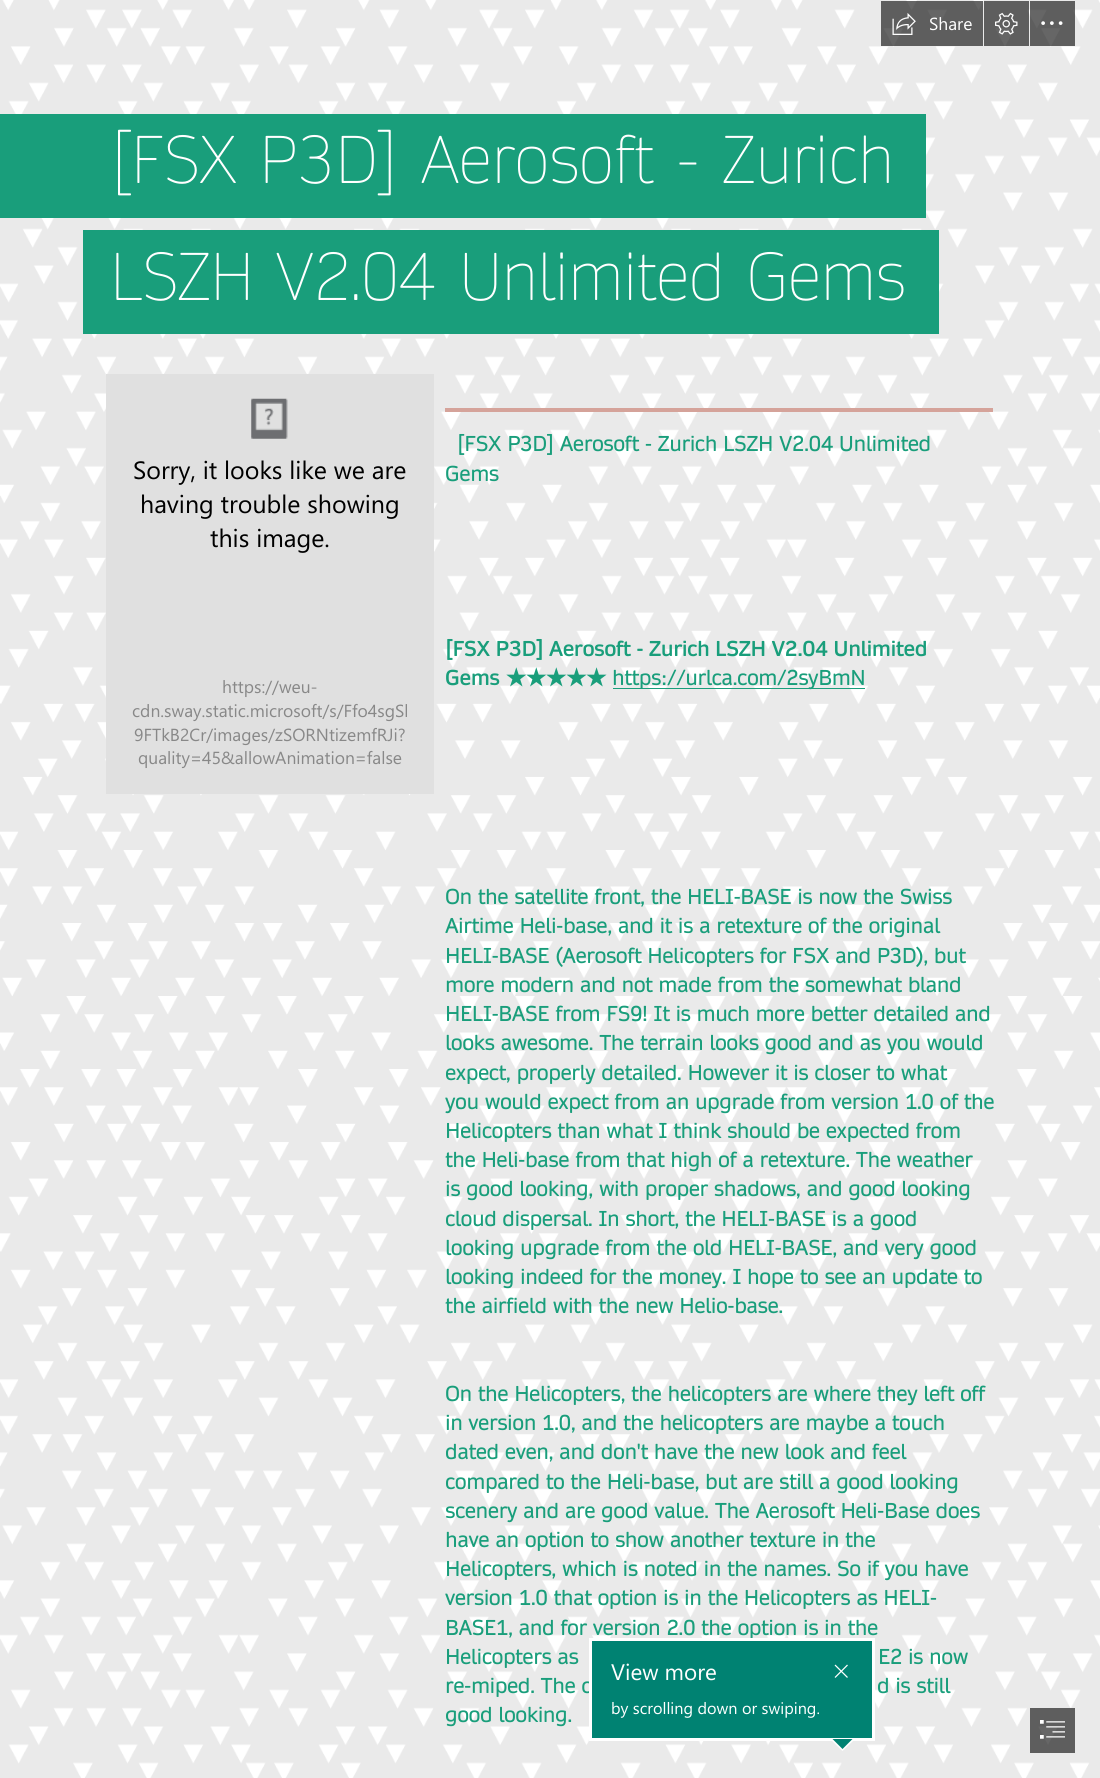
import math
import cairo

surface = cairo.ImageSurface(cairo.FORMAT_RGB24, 1100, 1778)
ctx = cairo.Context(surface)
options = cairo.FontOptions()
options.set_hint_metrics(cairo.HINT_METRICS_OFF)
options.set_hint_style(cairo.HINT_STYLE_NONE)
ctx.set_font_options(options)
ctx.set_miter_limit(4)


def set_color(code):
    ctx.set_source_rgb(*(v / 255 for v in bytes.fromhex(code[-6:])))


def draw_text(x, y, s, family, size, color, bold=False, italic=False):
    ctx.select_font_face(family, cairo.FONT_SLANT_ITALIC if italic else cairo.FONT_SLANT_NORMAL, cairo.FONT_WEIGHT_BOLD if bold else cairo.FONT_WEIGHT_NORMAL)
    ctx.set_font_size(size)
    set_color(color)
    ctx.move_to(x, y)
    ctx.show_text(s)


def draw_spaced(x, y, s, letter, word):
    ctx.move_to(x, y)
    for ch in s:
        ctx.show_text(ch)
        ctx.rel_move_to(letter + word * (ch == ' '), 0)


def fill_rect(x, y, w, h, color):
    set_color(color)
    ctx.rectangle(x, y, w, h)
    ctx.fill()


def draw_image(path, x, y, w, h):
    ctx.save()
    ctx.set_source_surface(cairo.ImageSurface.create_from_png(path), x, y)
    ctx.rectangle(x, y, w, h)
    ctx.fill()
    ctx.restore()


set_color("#eaeaea")
ctx.paint()
draw_image("assets/img4.png", 0, 0, 1100, 1778)
ctx.set_source_rgba(0, 0, 0, 0.6)
ctx.rectangle(881, 1, 102, 45)
ctx.fill()
draw_image("assets/img1.png", 892, 13, 24, 22)
draw_text(929, 30, "Share", "Segoe UI", 17.5, "#ffffff")
ctx.set_source_rgba(0, 0, 0, 0.6)
ctx.rectangle(984, 1, 45, 45)
ctx.fill()
draw_image("assets/img2.png", 995, 12, 23, 23)
ctx.rectangle(1030, 1, 45, 45)
ctx.fill()
draw_image("assets/img3.png", 1041, 21, 22, 4)
fill_rect(0, 114, 926, 104, "#199e7b")
ctx.select_font_face("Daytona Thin")
ctx.set_font_size(64.5)
set_color("#ffffff")
draw_spaced(110, 183, "[FSX P3D] Aerosoft - Zurich", -0.4, 0)
fill_rect(83, 230, 856, 104, "#199e7b")
set_color("#ffffff")
draw_spaced(110, 300, "LSZH V2.04 Unlimited Gems", -0.75, 0)
fill_rect(106, 374, 328, 420, "#e0e0e0")
draw_image("assets/img5.png", 251, 398, 37, 41)
draw_text(133, 479, "Sorry, it looks like we are", "Segoe UI", 25, "#000000")
draw_text(140, 513, "having trouble showing", "Segoe UI", 25, "#000000")
draw_text(210, 547, "this image.", "Segoe UI", 25, "#000000")
draw_text(222, 693, "https://weu-", "Segoe UI", 17.5, "#888888")
draw_text(132, 717, "cdn.sway.static.microsoft/s/Ffo4sgSl", "Segoe UI", 17.5, "#888888")
draw_text(134, 741, "9FTkB2Cr/images/zSORNtizemfRJi?", "Segoe UI", 17.5, "#888888")
draw_text(138, 764, "quality=45&allowAnimation=false", "Segoe UI", 17.5, "#888888")
fill_rect(445, 408, 548, 4, "#d5a39a")
ctx.select_font_face("Daytona")
ctx.set_font_size(20.6)
set_color("#199e7b")
draw_spaced(457, 451, "[FSX P3D] Aerosoft - Zurich LSZH V2.04 Unlimited", -0.55, 0)
draw_spaced(445, 481, "Gems", -0.55, 0)
ctx.select_font_face("Daytona SemiBold")
draw_spaced(445, 656, "[FSX P3D] Aerosoft - Zurich LSZH V2.04 Unlimited", -0.55, 0)
draw_spaced(445, 685, "Gems", -0.55, 0)
ctx.select_font_face("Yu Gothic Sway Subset")
draw_spaced(506, 685, "★★★★★", -0.55, 0)
fill_rect(613, 688, 252, 1, "#199e7b")
ctx.select_font_face("Daytona")
draw_spaced(612, 685, "https://urlca.com/2syBmN", -0.55, 0)
draw_spaced(445, 904, "On the satellite front, the HELI-BASE is now the Swiss", -0.55, 0)
draw_spaced(445, 933, "Airtime Heli-base, and it is a retexture of the original", -0.55, 0)
draw_spaced(445, 963, "HELI-BASE (Aerosoft Helicopters for FSX and P3D), but", -0.55, 0)
draw_spaced(445, 992, "more modern and not made from the somewhat bland", -0.55, 0)
draw_spaced(445, 1021, "HELI-BASE from FS9! It is much more better detailed and", -0.55, 0)
draw_spaced(445, 1050, "looks awesome. The terrain looks good and as you would", -0.55, 0)
draw_spaced(445, 1080, "expect, properly detailed. However it is closer to what", -0.55, 0)
draw_spaced(445, 1109, "you would expect from an upgrade from version 1.0 of the", -0.55, 0)
draw_spaced(445, 1138, "Helicopters than what I think should be expected from", -0.55, 0)
draw_spaced(445, 1167, "the Heli-base from that high of a retexture. The weather", -0.55, 0)
draw_spaced(445, 1196, "is good looking, with proper shadows, and good looking", -0.55, 0)
draw_spaced(445, 1226, "cloud dispersal. In short, the HELI-BASE is a good", -0.55, 0)
draw_spaced(445, 1255, "looking upgrade from the old HELI-BASE, and very good", -0.55, 0)
draw_spaced(445, 1284, "looking indeed for the money. I hope to see an update to", -0.55, 0)
draw_spaced(445, 1313, "the airfield with the new Helio-base.", -0.55, 0)
draw_spaced(445, 1401, "On the Helicopters, the helicopters are where they left off", -0.55, 0)
draw_spaced(445, 1430, "in version 1.0, and the helicopters are maybe a touch", -0.55, 0)
draw_spaced(445, 1459, "dated even, and don't have the new look and feel", -0.55, 0)
draw_spaced(445, 1489, "compared to the Heli-base, but are still a good looking", -0.55, 0)
draw_spaced(445, 1518, "scenery and are good value. The Aerosoft Heli-Base does", -0.55, 0)
draw_spaced(445, 1547, "have an option to show another texture in the", -0.55, 0)
draw_spaced(445, 1576, "Helicopters, which is noted in the names. So if you have", -0.55, 0)
draw_spaced(445, 1605, "version 1.0 that option is in the Helicopters as HELI-", -0.55, 0)
draw_spaced(445, 1635, "BASE1, and for version 2.0 the option is in the", -0.55, 0)
draw_spaced(445, 1664, "Helicopters as", -0.55, 0)
draw_spaced(878, 1664, "E2 is now", -0.55, 0)
draw_spaced(445, 1693, "re-miped. The c", -0.55, 0)
draw_spaced(877, 1693, "d is still", -0.55, 0)
draw_spaced(445, 1722, "good looking.", -0.55, 0)
set_color("#008272")
ctx.rectangle(590.5, 1639.5, 283, 100)
ctx.fill_preserve()
set_color("#ffffff")
ctx.set_line_width(3)
ctx.stroke()
draw_text(611, 1680, "View more", "Segoe UI", 22.5, "#ffffff")
draw_text(611, 1714, "by scrolling down or swiping.", "Segoe UI", 16.25, "#ffffff")
draw_image("assets/img6.png", 834, 1664, 14, 14)
ctx.new_path()
ctx.move_to(830, 1739)
ctx.line_to(855, 1739)
ctx.line_to(842.5, 1751)
ctx.close_path()
ctx.fill()
set_color("#008272")
ctx.new_path()
ctx.move_to(832.5, 1739)
ctx.line_to(852.5, 1739)
ctx.line_to(842.5, 1749)
ctx.close_path()
ctx.fill()
ctx.set_source_rgba(0, 0, 0, 0.6)
ctx.rectangle(1030, 1708, 45, 45)
ctx.fill()
draw_image("assets/img7.png", 1040, 1720, 25, 19)
surface.write_to_png("output.png")
